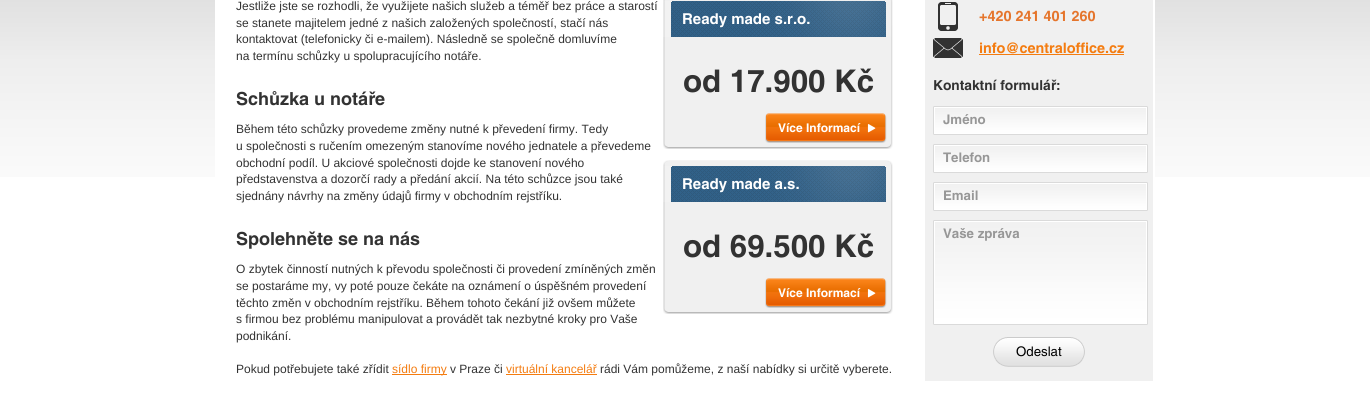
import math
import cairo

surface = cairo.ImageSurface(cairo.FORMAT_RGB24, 1370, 408)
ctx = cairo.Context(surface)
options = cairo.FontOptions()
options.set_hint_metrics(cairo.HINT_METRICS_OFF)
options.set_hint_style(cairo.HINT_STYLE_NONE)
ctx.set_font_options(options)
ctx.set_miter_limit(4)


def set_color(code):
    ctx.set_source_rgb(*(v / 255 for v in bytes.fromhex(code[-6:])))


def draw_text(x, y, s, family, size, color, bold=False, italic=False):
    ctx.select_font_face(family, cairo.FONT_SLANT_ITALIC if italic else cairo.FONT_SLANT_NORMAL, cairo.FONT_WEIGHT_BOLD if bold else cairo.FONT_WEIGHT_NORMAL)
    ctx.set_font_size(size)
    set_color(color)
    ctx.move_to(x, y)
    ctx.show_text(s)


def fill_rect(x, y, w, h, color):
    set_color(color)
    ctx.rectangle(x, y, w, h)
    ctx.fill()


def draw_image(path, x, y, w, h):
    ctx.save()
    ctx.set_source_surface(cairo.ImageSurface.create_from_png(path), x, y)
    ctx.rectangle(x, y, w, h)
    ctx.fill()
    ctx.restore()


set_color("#ffffff")
ctx.paint()
draw_image("assets/img1.png", 0, 0, 1370, 177)
fill_rect(215, 0, 940, 177, "#ffffff")
draw_text(236, 10, "Jestliže jste se rozhodli, že využijete našich služeb a téměř bez práce a starostí", "Liberation Sans", 12, "#323232")
draw_text(236, 27, "se stanete majitelem jedné z našich založených společností, stačí nás", "Liberation Sans", 12, "#323232")
draw_text(236, 43, "kontaktovat (telefonicky či e-mailem). Následně se společně domluvíme", "Liberation Sans", 12, "#323232")
draw_text(236, 60, "na termínu schůzky u spolupracujícího notáře.", "Liberation Sans", 12, "#323232")
draw_image("assets/img2.png", 663, 0, 230, 149)
draw_text(682, 24, "Ready made s.r.o.", "Helvetica", 15, "#ffffff", bold=True)
draw_text(683, 92, "od 17.900 Kč", "Helvetica", 31.25, "#323232", bold=True)
draw_image("assets/img3.png", 765, 113, 122, 30)
draw_text(778, 132, "Více Informací", "Helvetica", 12, "#ffffff", bold=True)
draw_image("assets/img4.png", 663, 160, 230, 154)
draw_text(682, 189, "Ready made a.s.", "Helvetica", 15, "#ffffff", bold=True)
draw_text(683, 257, "od 69.500 Kč", "Helvetica", 31.25, "#323232", bold=True)
draw_image("assets/img3.png", 765, 278, 122, 30)
draw_text(778, 297, "Více Informací", "Helvetica", 12, "#ffffff", bold=True)
draw_text(236, 105, "Schůzka u notáře", "Helvetica", 18, "#323232", bold=True)
draw_text(236, 133, "Během této schůzky provedeme změny nutné k převedení firmy. Tedy", "Liberation Sans", 12, "#323232")
draw_text(236, 150, "u společnosti s ručením omezeným stanovíme nového jednatele a převedeme", "Liberation Sans", 12, "#323232")
draw_text(236, 167, "obchodní podíl. U akciové společnosti dojde ke stanovení nového", "Liberation Sans", 12, "#323232")
draw_text(236, 183, "představenstva a dozorčí rady a předání akcií. Na této schůzce jsou také", "Liberation Sans", 12, "#323232")
draw_text(236, 200, "sjednány návrhy na změny údajů firmy v obchodním rejstříku.", "Liberation Sans", 12, "#323232")
draw_text(236, 245, "Spolehněte se na nás", "Helvetica", 18, "#323232", bold=True)
draw_text(236, 273, "O zbytek činností nutných k převodu společnosti či provedení zmíněných změn", "Liberation Sans", 12, "#323232")
draw_text(236, 290, "se postaráme my, vy poté pouze čekáte na oznámení o úspěšném provedení", "Liberation Sans", 12, "#323232")
draw_text(236, 307, "těchto změn v obchodním rejstříku. Během tohoto čekání již ovšem můžete", "Liberation Sans", 12, "#323232")
draw_text(236, 323, "s firmou bez problému manipulovat a provádět tak nezbytné kroky pro Vaše", "Liberation Sans", 12, "#323232")
draw_text(236, 340, "podnikání.", "Liberation Sans", 12, "#323232")
draw_text(236, 373, "Pokud potřebujete také zřídit", "Liberation Sans", 12, "#323232")
fill_rect(392, 374, 55, 1, "#f47c10")
draw_text(392, 373, "sídlo firmy", "Liberation Sans", 12, "#f47c10")
draw_text(450, 373, "v Praze či", "Liberation Sans", 12, "#323232")
draw_text(506, 373, "virtuální kancelář", "Liberation Sans", 12, "#f47c10")
fill_rect(506, 374, 91, 1, "#f47c10")
draw_text(600, 373, "rádi Vám pomůžeme, z naší nabídky si určitě vyberete.", "Liberation Sans", 12, "#323232")
fill_rect(925, 0, 228, 381, "#f0f0f0")
draw_image("assets/img5.png", 938, 2, 20, 29)
draw_text(979, 21, "+420 241 401 260", "Helvetica", 14.4, "#e5752c", bold=True)
draw_image("assets/img6.png", 933, 38, 30, 20)
draw_text(979, 53, "info@centraloffice.cz", "Helvetica", 14.4, "#f47c10", bold=True)
fill_rect(979, 54, 145, 1, "#f47c10")
draw_text(933, 90, "Kontaktní formulář:", "Helvetica", 13.75, "#323232", bold=True)
draw_image("assets/img7.png", 933, 106, 215, 29)
draw_text(943, 124, "Jméno", "Helvetica", 13.25, "#979797", bold=True)
draw_image("assets/img7.png", 933, 144, 215, 29)
draw_text(943, 162, "Telefon", "Helvetica", 13.25, "#979797", bold=True)
draw_image("assets/img7.png", 933, 182, 215, 29)
draw_text(943, 200, "Email", "Helvetica", 13.25, "#979797", bold=True)
draw_image("assets/img8.png", 933, 220, 215, 105)
draw_text(943, 238, "Vaše zpráva", "Helvetica", 13.25, "#979797", bold=True)
draw_image("assets/img9.png", 993, 337, 92, 30)
draw_text(1016, 356, "Odeslat", "Helvetica", 13.25, "#000000")
surface.write_to_png("output.png")
